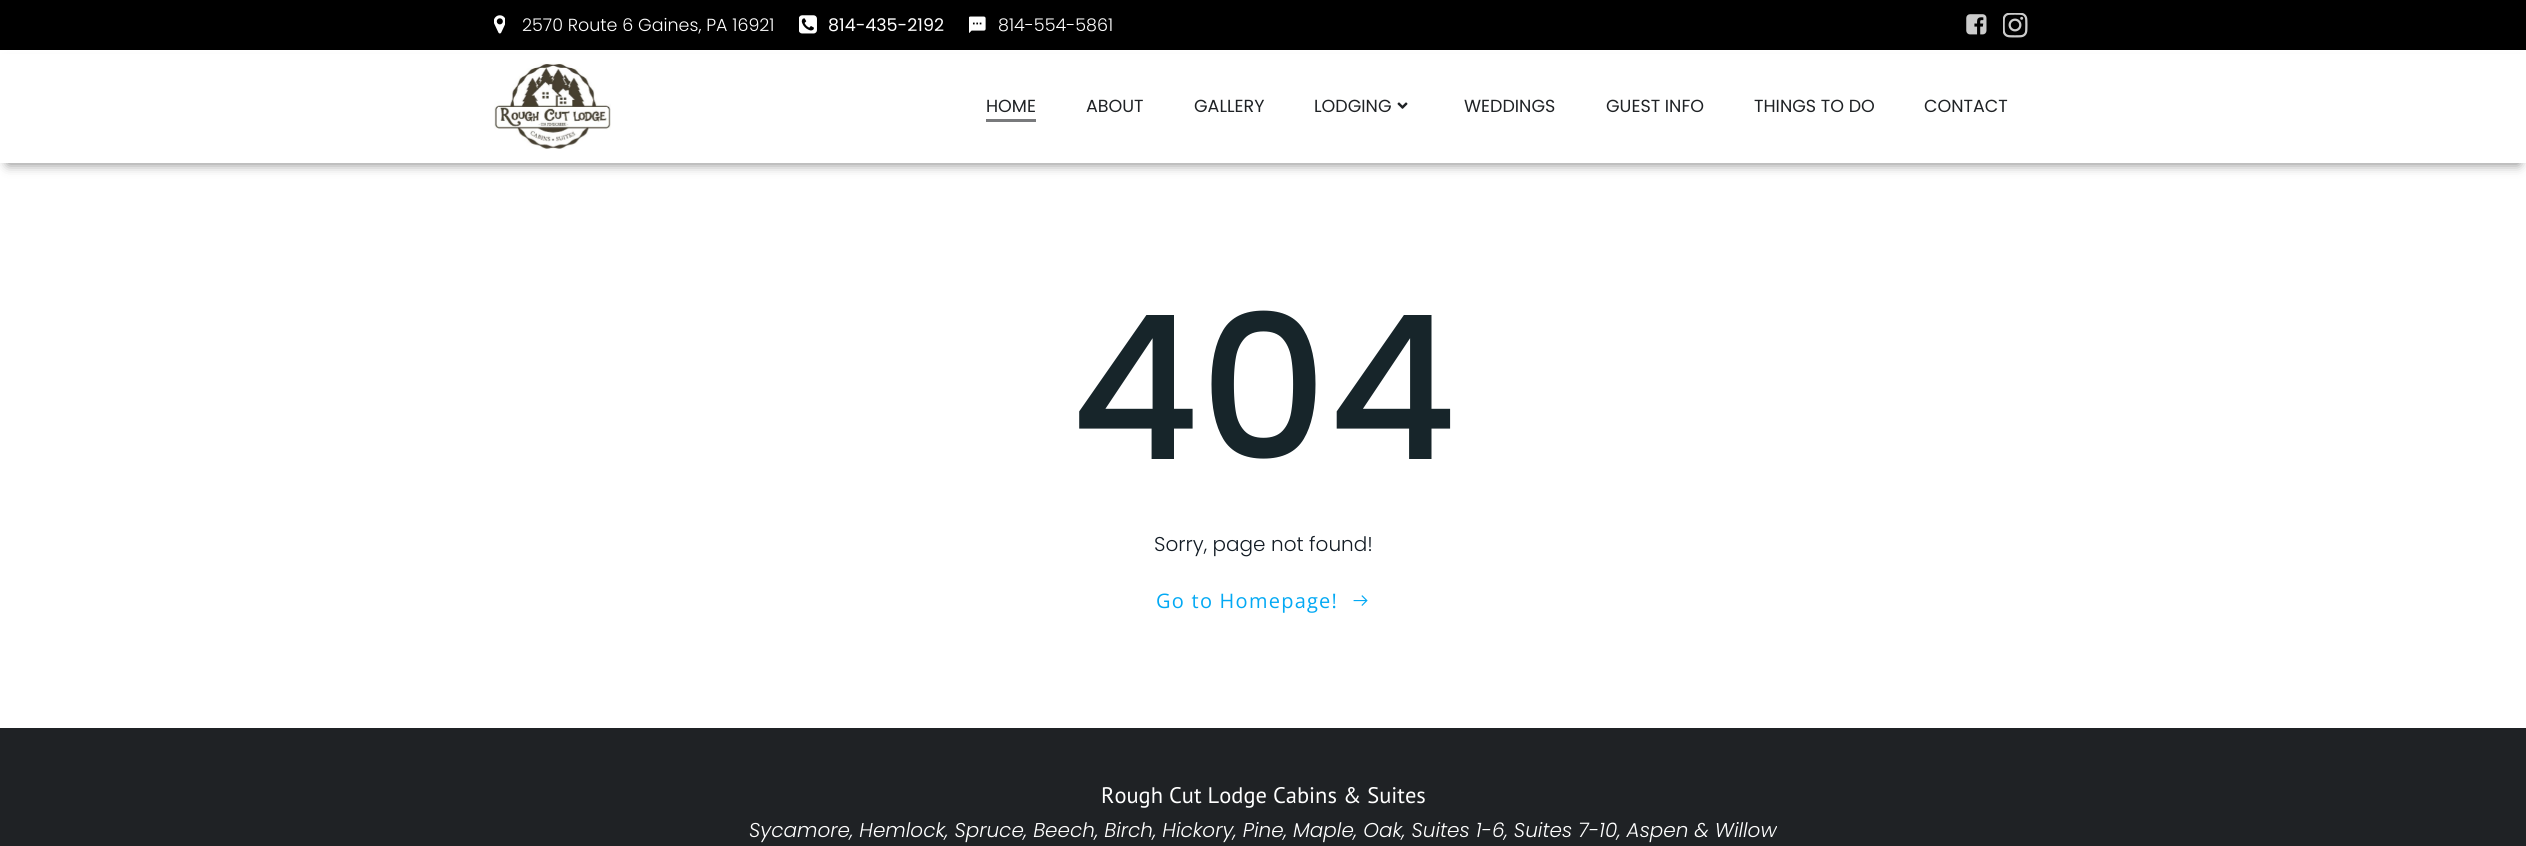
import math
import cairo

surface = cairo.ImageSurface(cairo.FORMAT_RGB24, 2526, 846)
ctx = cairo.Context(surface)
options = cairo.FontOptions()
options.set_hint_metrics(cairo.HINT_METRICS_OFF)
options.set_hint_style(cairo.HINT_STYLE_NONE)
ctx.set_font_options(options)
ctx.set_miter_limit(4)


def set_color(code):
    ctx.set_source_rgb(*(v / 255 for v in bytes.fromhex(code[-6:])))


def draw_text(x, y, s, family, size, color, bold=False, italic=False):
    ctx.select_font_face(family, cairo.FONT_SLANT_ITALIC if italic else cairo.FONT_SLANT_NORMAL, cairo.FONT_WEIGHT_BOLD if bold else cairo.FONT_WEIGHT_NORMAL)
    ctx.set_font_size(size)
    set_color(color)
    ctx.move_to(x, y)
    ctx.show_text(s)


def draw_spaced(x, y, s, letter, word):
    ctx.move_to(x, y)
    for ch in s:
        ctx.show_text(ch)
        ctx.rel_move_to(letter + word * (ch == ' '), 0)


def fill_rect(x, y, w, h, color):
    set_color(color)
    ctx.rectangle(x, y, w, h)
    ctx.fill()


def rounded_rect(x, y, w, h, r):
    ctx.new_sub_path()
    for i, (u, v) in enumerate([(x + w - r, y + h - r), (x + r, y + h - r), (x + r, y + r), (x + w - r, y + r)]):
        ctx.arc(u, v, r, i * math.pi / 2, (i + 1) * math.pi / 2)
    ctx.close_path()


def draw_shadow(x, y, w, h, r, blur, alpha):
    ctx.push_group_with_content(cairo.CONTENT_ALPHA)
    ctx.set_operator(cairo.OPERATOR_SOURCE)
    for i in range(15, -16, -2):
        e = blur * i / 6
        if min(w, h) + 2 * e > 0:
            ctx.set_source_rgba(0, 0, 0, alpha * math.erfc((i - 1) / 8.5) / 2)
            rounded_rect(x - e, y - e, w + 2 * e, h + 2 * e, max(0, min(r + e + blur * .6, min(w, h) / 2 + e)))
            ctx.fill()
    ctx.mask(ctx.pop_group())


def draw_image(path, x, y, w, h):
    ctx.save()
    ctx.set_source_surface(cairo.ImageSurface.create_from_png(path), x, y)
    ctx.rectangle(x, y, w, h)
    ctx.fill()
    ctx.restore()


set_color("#ffffff")
ctx.paint()
fill_rect(0, 0, 2526, 50, "#000000")
draw_image("assets/img1.png", 494, 15, 11, 19)
draw_text(522, 31, "2570 Route 6 Gaines, PA 16921", "Poppins Light", 17.5, "#ffffff")
draw_image("assets/img2.png", 799, 15, 18, 19)
draw_text(828, 31, "814-435-2192", "Poppins", 17.5, "#ffffff")
draw_image("assets/img3.png", 969, 16, 17, 17)
draw_text(998, 31, "814-554-5861", "Poppins Light", 17.5, "#ffffff")
draw_image("assets/img4.png", 1966, 14, 21, 21)
draw_image("assets/img5.png", 2003, 13, 25, 25)
set_color("#000000")
draw_shadow(8, 66, 2511, 98, 0, 6, 0.5)
fill_rect(0, 54, 2526, 109, "#ffffff")
draw_image("assets/img6.png", 494, 63, 117, 86)
draw_text(986, 112, "HOME", "Poppins", 17.5, "#1f2225")
fill_rect(986, 119, 50, 3, "#797a7c")
draw_text(1086, 112, "ABOUT", "Poppins", 17.5, "#1f2225")
draw_text(1194, 112, "GALLERY", "Poppins", 17.5, "#1f2225")
draw_text(1314, 112, "LODGING", "Poppins", 17.5, "#1f2225")
draw_image("assets/img7.png", 1397, 102, 11, 7)
draw_text(1464, 112, "WEDDINGS", "Poppins", 17.5, "#1f2225")
draw_text(1606, 112, "GUEST INFO", "Poppins", 17.5, "#1f2225")
draw_text(1754, 112, "THINGS TO DO", "Poppins", 17.5, "#1f2225")
draw_text(1924, 112, "CONTACT", "Poppins", 17.5, "#1f2225")
draw_text(1070, 459, "404", "Poppins Medium", 200, "#17252a")
draw_text(1154, 551, "Sorry, page not found!", "Poppins Light", 20, "#131c25")
ctx.select_font_face("Open Sans")
set_color("#03a9f4")
draw_spaced(1156, 608, "Go to Homepage!", 1.25, 0)
draw_image("assets/img8.png", 1353, 595, 15, 11)
fill_rect(0, 728, 2526, 118, "#1f2225")
draw_text(1101, 803, "Rough Cut Lodge Cabins & Suites", "PT Sans", 22.5, "#ffffff")
draw_text(749, 837, "Sycamore, Hemlock, Spruce, Beech, Birch, Hickory, Pine, Maple, Oak, Suites 1-6, Suites 7-10, Aspen & Willow", "Poppins Light", 20, "#ffffff", italic=True)
surface.write_to_png("output.png")
